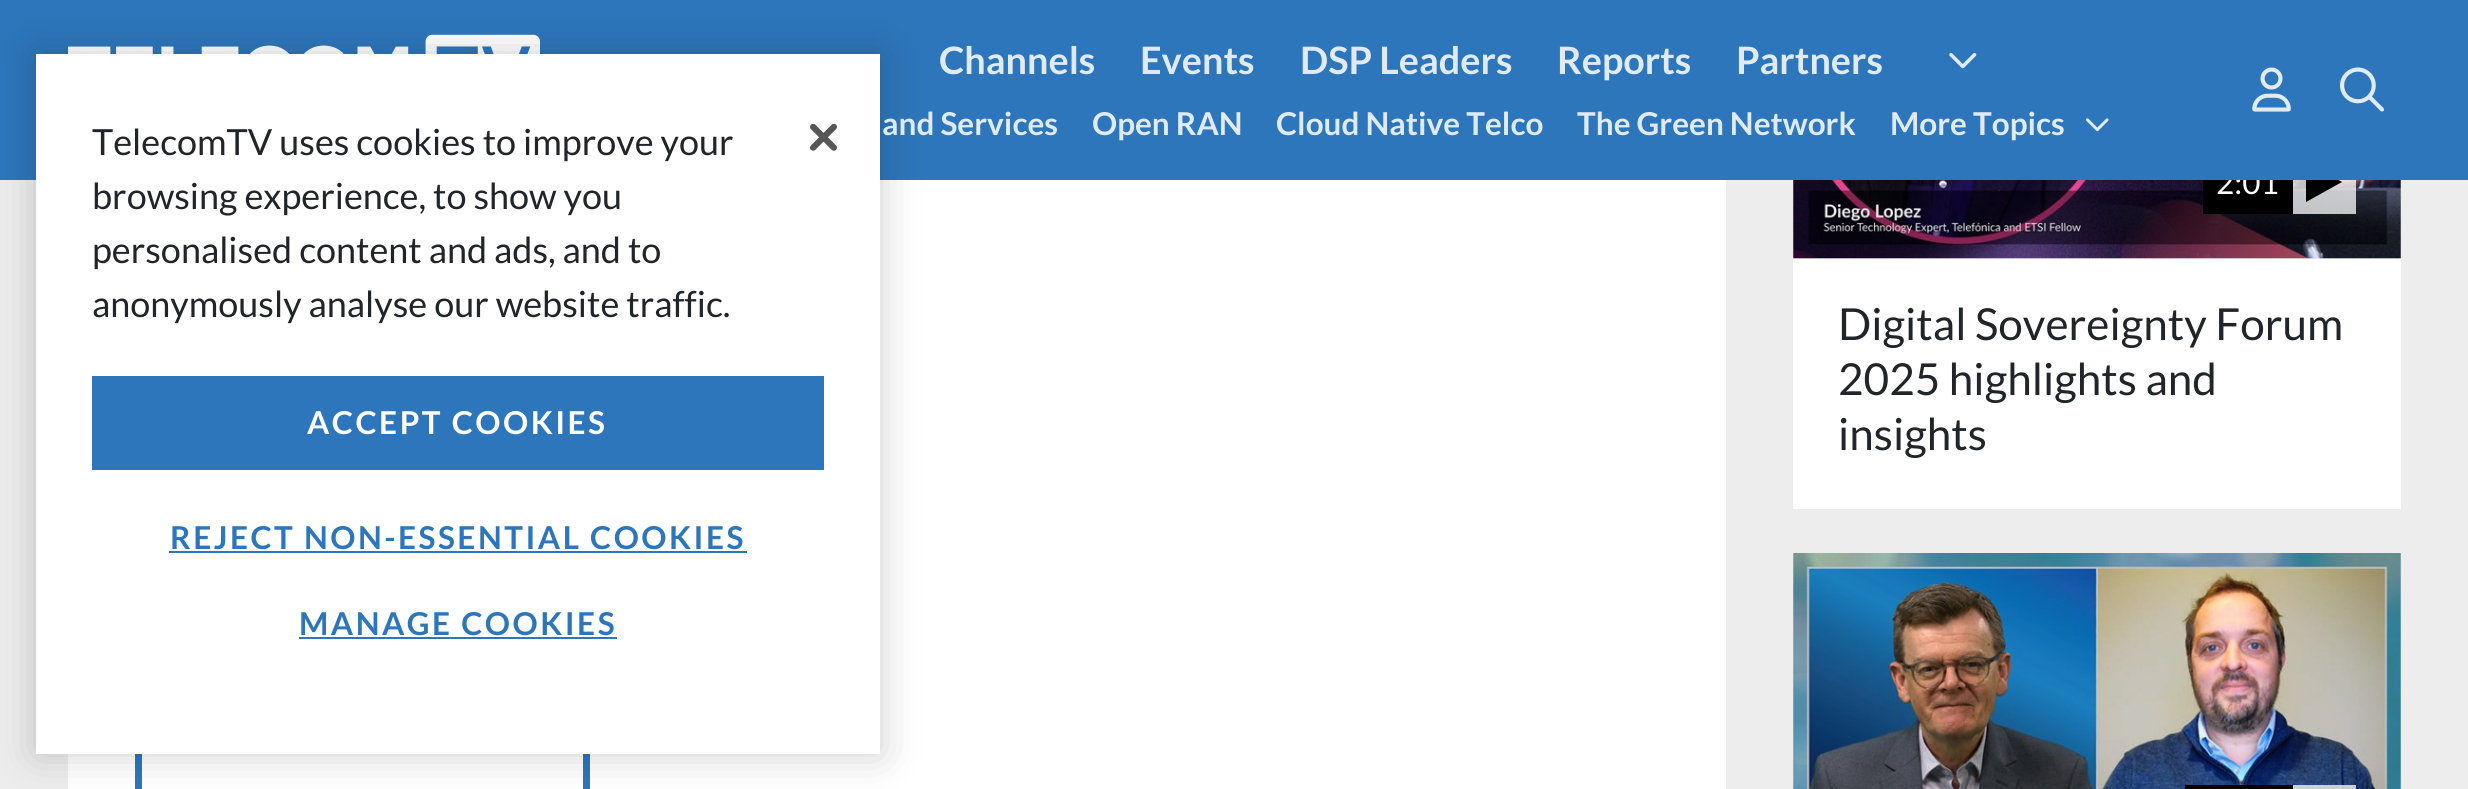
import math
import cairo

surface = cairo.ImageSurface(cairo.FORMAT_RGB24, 2468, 789)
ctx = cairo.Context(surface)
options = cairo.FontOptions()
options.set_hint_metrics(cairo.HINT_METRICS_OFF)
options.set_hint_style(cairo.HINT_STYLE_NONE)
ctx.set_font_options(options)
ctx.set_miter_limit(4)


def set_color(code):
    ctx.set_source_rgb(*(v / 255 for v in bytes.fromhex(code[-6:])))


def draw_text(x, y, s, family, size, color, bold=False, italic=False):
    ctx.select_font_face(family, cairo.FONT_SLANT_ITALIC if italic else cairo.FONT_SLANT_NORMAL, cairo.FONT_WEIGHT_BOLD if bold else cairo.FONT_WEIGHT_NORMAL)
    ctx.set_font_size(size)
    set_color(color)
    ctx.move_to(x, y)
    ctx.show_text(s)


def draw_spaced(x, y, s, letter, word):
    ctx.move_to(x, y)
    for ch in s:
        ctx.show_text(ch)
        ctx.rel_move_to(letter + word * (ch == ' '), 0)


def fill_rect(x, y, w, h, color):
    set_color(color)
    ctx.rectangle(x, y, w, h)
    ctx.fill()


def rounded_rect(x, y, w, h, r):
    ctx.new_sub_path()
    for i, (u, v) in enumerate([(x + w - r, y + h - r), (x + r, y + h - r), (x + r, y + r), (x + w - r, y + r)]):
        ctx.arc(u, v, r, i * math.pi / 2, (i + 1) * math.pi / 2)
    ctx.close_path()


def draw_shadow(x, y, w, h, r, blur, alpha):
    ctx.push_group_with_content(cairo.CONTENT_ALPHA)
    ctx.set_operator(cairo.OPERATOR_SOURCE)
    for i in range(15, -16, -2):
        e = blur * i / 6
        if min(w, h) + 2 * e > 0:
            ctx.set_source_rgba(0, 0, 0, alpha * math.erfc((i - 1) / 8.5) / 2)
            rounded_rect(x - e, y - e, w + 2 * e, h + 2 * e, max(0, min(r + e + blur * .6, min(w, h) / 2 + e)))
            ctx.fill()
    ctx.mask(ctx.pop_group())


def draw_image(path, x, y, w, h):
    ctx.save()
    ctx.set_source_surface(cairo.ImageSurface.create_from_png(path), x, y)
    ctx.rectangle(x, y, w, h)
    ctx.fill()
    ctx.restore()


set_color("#ededed")
ctx.paint()
fill_rect(1793, 180, 608, 79, "#e9ecef")
draw_image("assets/img7.png", 1793, 180, 608, 79)
fill_rect(2203, 180, 90, 34, "#000000")
draw_text(2216, 194, "2:01", "Lato", 31.5, "#ffffff")
ctx.set_source_rgba(1, 1, 1, 0.75)
ctx.rectangle(2293, 180, 63, 34)
ctx.fill()
set_color("#000000")
ctx.new_path()
ctx.move_to(2306, 202)
ctx.line_to(2306, 162)
ctx.line_to(2342, 182)
ctx.close_path()
ctx.fill()
fill_rect(0, 0, 2468, 180, "#2d76bb")
draw_image("assets/img2.png", 68, 34, 472, 20)
fill_rect(68, 180, 1658, 609, "#ffffff")
ctx.rectangle(138.5, 721.5, 448, 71)
set_color("#2d76bb")
ctx.set_line_width(7)
ctx.stroke()
set_color("#000000")
draw_shadow(36, 54, 844, 700, 0, 20, 0.2)
fill_rect(36, 54, 844, 700, "#ffffff")
draw_text(92, 155, "TelecomTV uses cookies to improve your", "Lato", 36, "#212529")
draw_text(92, 209, "browsing experience, to show you", "Lato", 36, "#212529")
draw_text(92, 263, "personalised content and ads, and to", "Lato", 36, "#212529")
draw_text(92, 317, "anonymously analyse our website traffic.", "Lato", 36, "#212529")
draw_image("assets/img1.png", 810, 124, 27, 27)
fill_rect(92, 376, 732, 94, "#2d76bb")
ctx.select_font_face("Lato", cairo.FONT_SLANT_NORMAL, cairo.FONT_WEIGHT_BOLD)
ctx.set_font_size(31.5)
set_color("#ffffff")
draw_spaced(307, 434, "ACCEPT COOKIES", 2.5, 0)
set_color("#2d76bb")
draw_spaced(170, 549, "REJECT NON-ESSENTIAL COOKIES", 2.5, 0)
fill_rect(169, 551, 578, 2, "#2d76bb")
draw_spaced(299, 635, "MANAGE COOKIES", 2.5, 0)
fill_rect(299, 637, 318, 2, "#2d76bb")
draw_text(939, 74, "Channels", "Lato", 37.75, "#e0eaf5", bold=True)
draw_text(1140, 74, "Events", "Lato", 37.75, "#e0eaf5", bold=True)
draw_text(1300, 74, "DSP Leaders", "Lato", 37.75, "#e0eaf5", bold=True)
draw_text(1557, 74, "Reports", "Lato", 37.75, "#e0eaf5", bold=True)
draw_text(1736, 74, "Partners", "Lato", 37.75, "#e0eaf5", bold=True)
draw_image("assets/img3.png", 1949, 52, 28, 17)
draw_text(882, 135, "and Services", "Lato", 31.5, "#e0eaf5", bold=True)
draw_text(1092, 135, "Open RAN", "Lato", 31.5, "#e0eaf5", bold=True)
draw_text(1276, 135, "Cloud Native Telco", "Lato", 31.5, "#e0eaf5", bold=True)
draw_text(1577, 135, "The Green Network", "Lato", 31.5, "#e0eaf5", bold=True)
draw_text(1890, 135, "More Topics", "Lato", 31.5, "#e0eaf5", bold=True)
draw_image("assets/img4.png", 2086, 118, 23, 14)
draw_image("assets/img5.png", 2252, 67, 39, 45)
draw_image("assets/img6.png", 2340, 67, 45, 45)
fill_rect(1793, 259, 608, 250, "#ffffff")
draw_text(1838, 340, "Digital Sovereignty Forum", "Lato", 44.1, "#212529")
draw_text(1838, 395, "2025 highlights and", "Lato", 44.1, "#212529")
draw_text(1838, 450, "insights", "Lato", 44.1, "#212529")
draw_image("assets/img8.png", 1793, 553, 608, 236)
ctx.set_source_rgba(1, 1, 1, 0.75)
ctx.rectangle(2293, 785, 63, 4)
ctx.fill()
fill_rect(2185, 785, 108, 4, "#000000")
surface.write_to_png("output.png")
